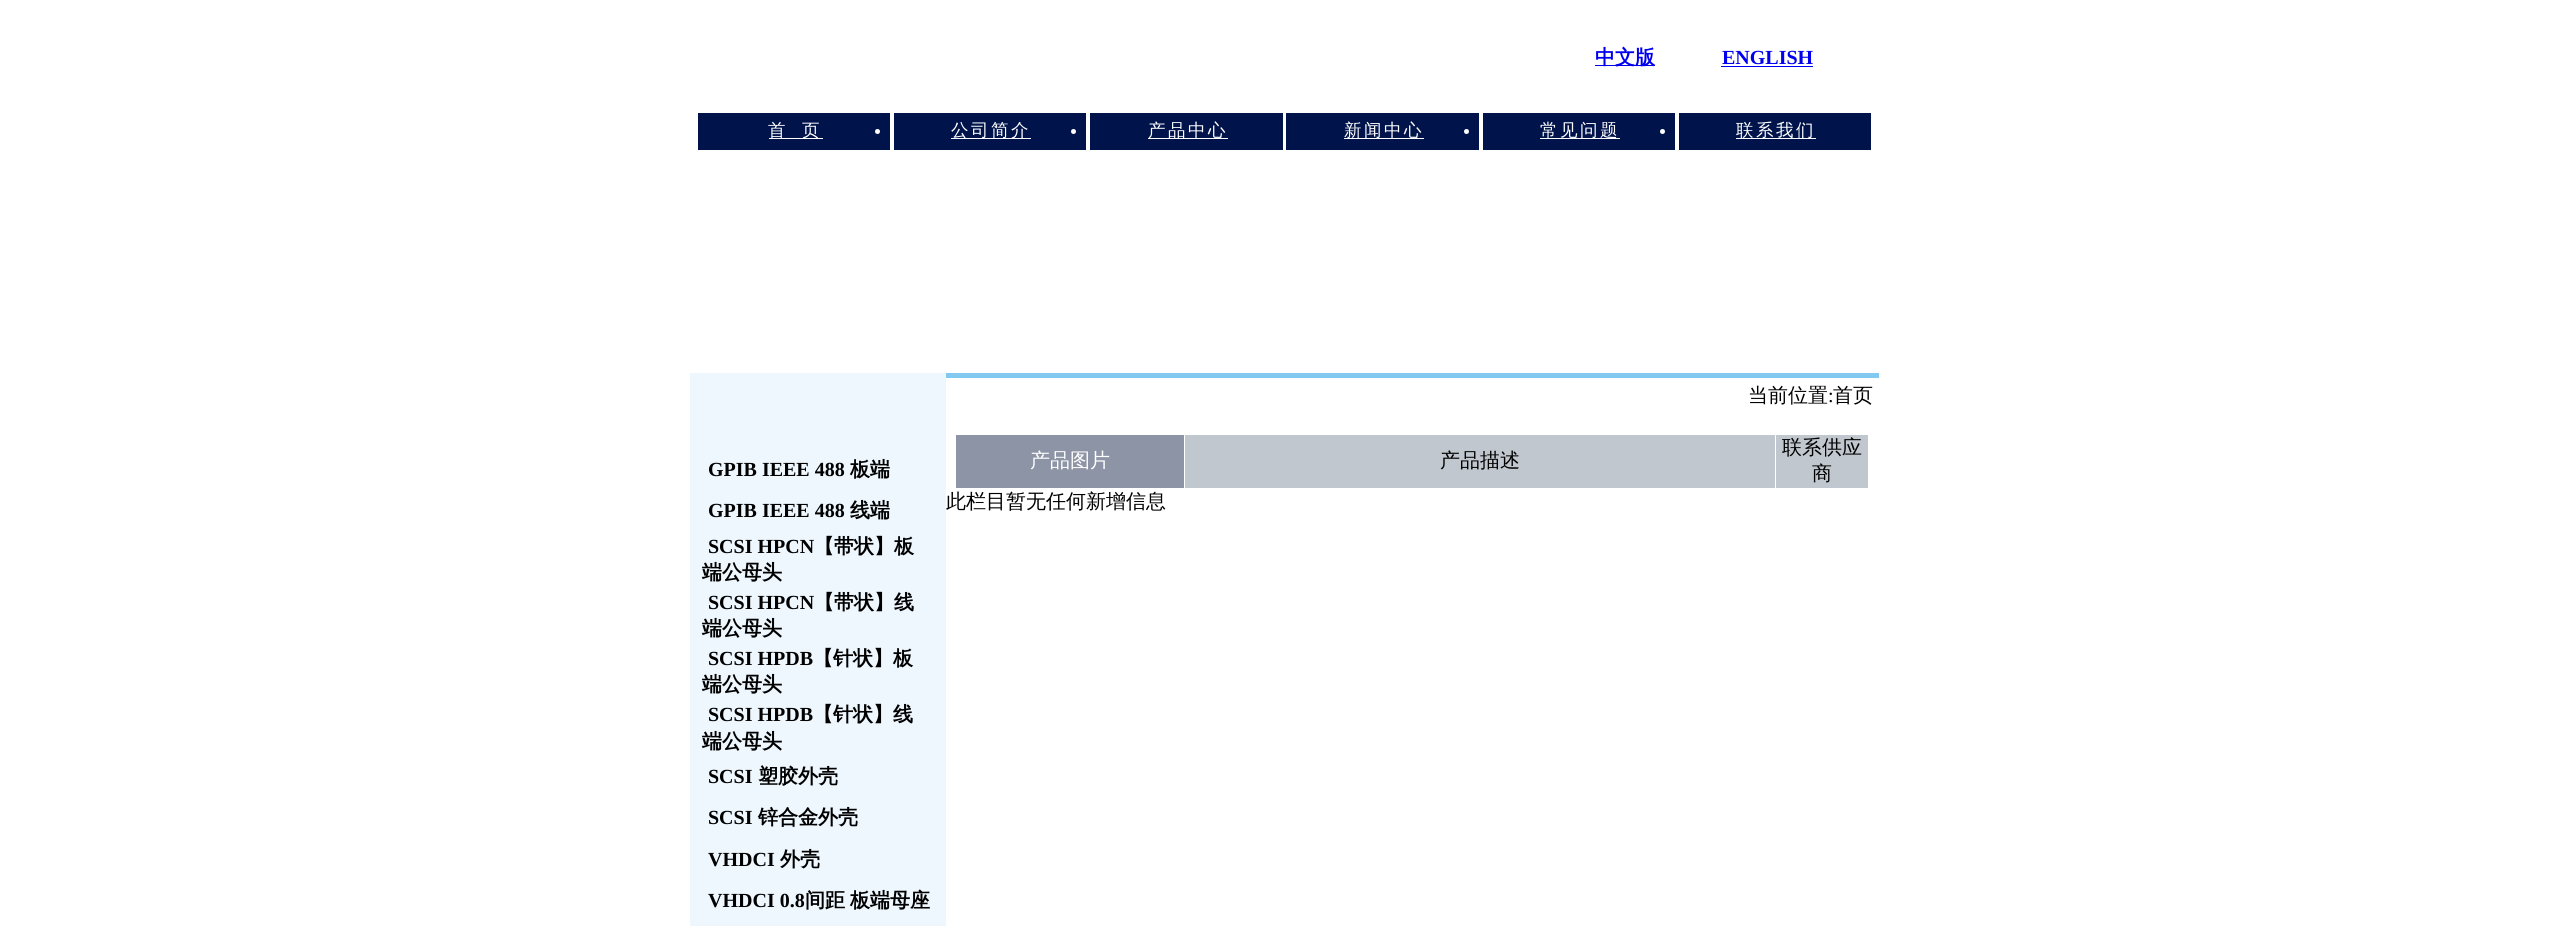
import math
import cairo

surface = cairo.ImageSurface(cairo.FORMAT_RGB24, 2567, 926)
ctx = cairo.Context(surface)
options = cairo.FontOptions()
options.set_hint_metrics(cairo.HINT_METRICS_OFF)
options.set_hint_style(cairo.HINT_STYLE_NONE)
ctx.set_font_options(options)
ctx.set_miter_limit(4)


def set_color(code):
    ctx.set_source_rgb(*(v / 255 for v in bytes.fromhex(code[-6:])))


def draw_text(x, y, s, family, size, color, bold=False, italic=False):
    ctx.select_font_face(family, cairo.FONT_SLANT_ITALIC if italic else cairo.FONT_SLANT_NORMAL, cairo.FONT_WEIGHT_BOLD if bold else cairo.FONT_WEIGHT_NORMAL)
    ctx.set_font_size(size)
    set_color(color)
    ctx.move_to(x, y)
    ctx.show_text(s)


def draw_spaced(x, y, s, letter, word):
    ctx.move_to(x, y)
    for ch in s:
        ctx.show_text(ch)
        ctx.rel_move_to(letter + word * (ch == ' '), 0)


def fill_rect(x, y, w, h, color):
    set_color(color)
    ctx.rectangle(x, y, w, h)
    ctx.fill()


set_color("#ffffff")
ctx.paint()
fill_rect(1595, 65, 60, 1, "#0000ee")
draw_text(1595, 64, "中文版", "WenQuanYi Zen Hei", 20, "#0000ee", bold=True)
draw_text(1722, 64, "ENGLISH", "Liberation Serif", 20, "#0000ee", bold=True)
fill_rect(1721, 66, 92, 1, "#0000ee")
fill_rect(698, 113, 192, 37, "#00134b")
fill_rect(769, 138, 54, 1, "#ffffff")
ctx.select_font_face("WenQuanYi Zen Hei Medium")
ctx.set_font_size(17.5)
draw_spaced(768, 136, "首", 2.5, 0)
draw_spaced(802, 136, "页", 2.5, 0)
fill_rect(894, 113, 192, 37, "#00134b")
set_color("#ffffff")
ctx.new_path()
ctx.arc(877.5, 131.5, 2.5, 0, 2 * math.pi)
ctx.fill()
fill_rect(951, 138, 80, 1, "#ffffff")
draw_spaced(951, 136, "公司简介", 2.5, 0)
fill_rect(1090, 113, 193, 37, "#00134b")
set_color("#ffffff")
ctx.new_path()
ctx.arc(1073.5, 131.5, 2.5, 0, 2 * math.pi)
ctx.fill()
fill_rect(1148, 138, 80, 1, "#ffffff")
draw_spaced(1148, 136, "产品中心", 2.5, 0)
fill_rect(1286, 113, 193, 37, "#00134b")
fill_rect(1344, 138, 80, 1, "#ffffff")
draw_spaced(1344, 136, "新闻中心", 2.5, 0)
fill_rect(1483, 113, 192, 37, "#00134b")
set_color("#ffffff")
ctx.new_path()
ctx.arc(1466.5, 131.5, 2.5, 0, 2 * math.pi)
ctx.fill()
fill_rect(1540, 138, 80, 1, "#ffffff")
draw_spaced(1540, 136, "常见问题", 2.5, 0)
fill_rect(1679, 113, 192, 37, "#00134b")
set_color("#ffffff")
ctx.new_path()
ctx.arc(1662.5, 131.5, 2.5, 0, 2 * math.pi)
ctx.fill()
fill_rect(1736, 138, 80, 1, "#ffffff")
draw_spaced(1736, 136, "联系我们", 2.5, 0)
fill_rect(690, 373, 256, 553, "#eef7fe")
draw_text(708, 476, "GPIB IEEE 488", "Liberation Serif", 20, "#000000", bold=True)
draw_text(850, 476, "板端", "WenQuanYi Zen Hei", 20, "#000000", bold=True)
draw_text(708, 517, "GPIB IEEE 488", "Liberation Serif", 20, "#000000", bold=True)
draw_text(850, 517, "线端", "WenQuanYi Zen Hei", 20, "#000000", bold=True)
draw_text(708, 553, "SCSI HPCN", "Liberation Serif", 20, "#000000", bold=True)
draw_text(814, 553, "【带状】板", "WenQuanYi Zen Hei", 20, "#000000", bold=True)
draw_text(702, 579, "端公母头", "WenQuanYi Zen Hei", 20, "#000000", bold=True)
draw_text(708, 609, "SCSI HPCN", "Liberation Serif", 20, "#000000", bold=True)
draw_text(814, 609, "【带状】线", "WenQuanYi Zen Hei", 20, "#000000", bold=True)
draw_text(702, 635, "端公母头", "WenQuanYi Zen Hei", 20, "#000000", bold=True)
draw_text(708, 665, "SCSI HPDB", "Liberation Serif", 20, "#000000", bold=True)
draw_text(813, 665, "【针状】板", "WenQuanYi Zen Hei", 20, "#000000", bold=True)
draw_text(702, 691, "端公母头", "WenQuanYi Zen Hei", 20, "#000000", bold=True)
draw_text(708, 721, "SCSI HPDB", "Liberation Serif", 20, "#000000", bold=True)
draw_text(813, 721, "【针状】线", "WenQuanYi Zen Hei", 20, "#000000", bold=True)
draw_text(702, 748, "端公母头", "WenQuanYi Zen Hei", 20, "#000000", bold=True)
draw_text(708, 783, "SCSI", "Liberation Serif", 20, "#000000", bold=True)
draw_text(758, 783, "塑胶外壳", "WenQuanYi Zen Hei", 20, "#000000", bold=True)
draw_text(708, 824, "SCSI", "Liberation Serif", 20, "#000000", bold=True)
draw_text(758, 824, "锌合金外壳", "WenQuanYi Zen Hei", 20, "#000000", bold=True)
draw_text(708, 866, "VHDCI", "Liberation Serif", 20, "#000000", bold=True)
draw_text(780, 866, "外壳", "WenQuanYi Zen Hei", 20, "#000000", bold=True)
draw_text(708, 907, "VHDCI 0.8", "Liberation Serif", 20, "#000000", bold=True)
draw_text(805, 907, "间距", "WenQuanYi Zen Hei", 20, "#000000", bold=True)
draw_text(850, 907, "板端母座", "WenQuanYi Zen Hei", 20, "#000000", bold=True)
fill_rect(946, 373, 933, 5, "#81c9f1")
draw_text(1748, 402, "当前位置", "WenQuanYi Zen Hei Medium", 20, "#000000")
draw_text(1828, 402, ":", "Liberation Serif", 20, "#000000")
draw_text(1833, 402, "首页", "WenQuanYi Zen Hei Medium", 20, "#000000")
fill_rect(956, 435, 228, 53, "#8d94a5")
draw_text(1030, 467, "产品图片", "WenQuanYi Zen Hei Medium", 20, "#ffffff")
fill_rect(1185, 435, 590, 53, "#c1c7ce")
draw_text(1440, 467, "产品描述", "WenQuanYi Zen Hei Medium", 20, "#000000")
fill_rect(1776, 435, 92, 53, "#c1c7ce")
draw_text(1782, 454, "联系供应", "WenQuanYi Zen Hei Medium", 20, "#000000")
draw_text(1812, 480, "商", "WenQuanYi Zen Hei Medium", 20, "#000000")
draw_text(946, 508, "此栏目暂无任何新增信息", "WenQuanYi Zen Hei Medium", 20, "#000000")
surface.write_to_png("output.png")
